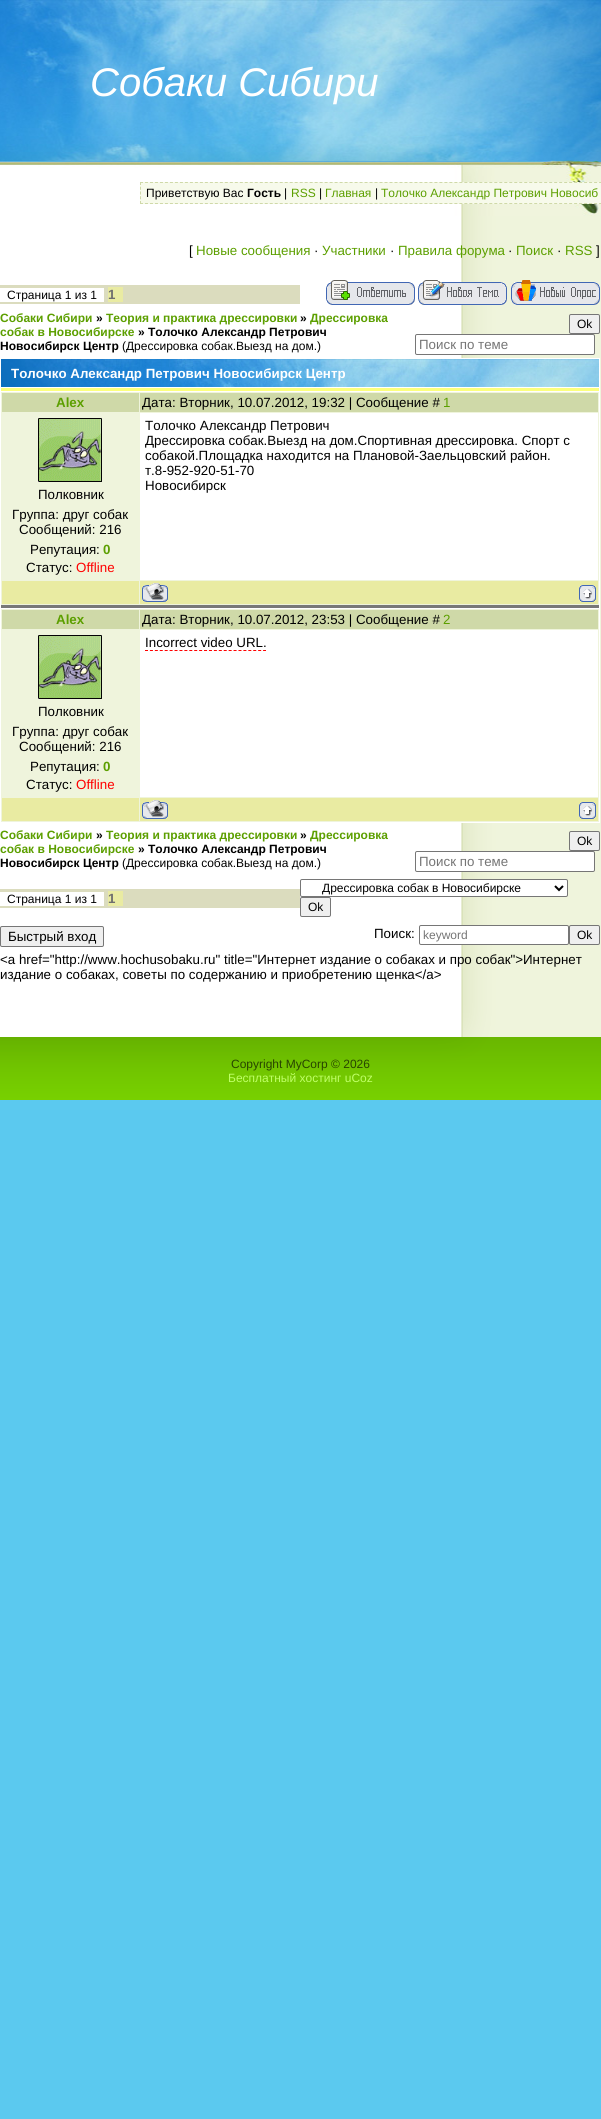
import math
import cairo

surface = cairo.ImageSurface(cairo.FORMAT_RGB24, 601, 2119)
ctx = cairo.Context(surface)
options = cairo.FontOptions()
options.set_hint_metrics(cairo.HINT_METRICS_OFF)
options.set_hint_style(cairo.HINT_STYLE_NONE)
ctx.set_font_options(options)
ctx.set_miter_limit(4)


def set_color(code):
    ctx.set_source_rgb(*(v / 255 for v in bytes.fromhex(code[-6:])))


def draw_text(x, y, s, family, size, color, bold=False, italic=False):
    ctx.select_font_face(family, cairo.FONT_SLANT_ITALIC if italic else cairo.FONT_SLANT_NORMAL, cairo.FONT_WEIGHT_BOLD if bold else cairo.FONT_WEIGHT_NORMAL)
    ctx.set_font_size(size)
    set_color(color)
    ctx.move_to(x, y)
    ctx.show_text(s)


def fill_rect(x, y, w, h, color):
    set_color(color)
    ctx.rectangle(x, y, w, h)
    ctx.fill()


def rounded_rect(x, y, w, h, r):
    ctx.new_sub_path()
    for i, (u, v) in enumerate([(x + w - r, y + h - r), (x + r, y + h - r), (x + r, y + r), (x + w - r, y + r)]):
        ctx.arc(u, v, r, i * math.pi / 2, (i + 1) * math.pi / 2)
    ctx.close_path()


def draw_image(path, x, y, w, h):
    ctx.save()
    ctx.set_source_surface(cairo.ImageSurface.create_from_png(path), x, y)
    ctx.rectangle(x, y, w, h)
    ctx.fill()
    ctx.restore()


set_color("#5bc9ef")
ctx.paint()
draw_image("assets/img1.png", 0, 216, 601, 781)
draw_image("assets/img2.png", 0, 0, 601, 216)
draw_text(90, 96, "Собаки Сибири", "Liberation Sans", 40, "#ffffff", italic=True)
fill_rect(140, 182, 461, 22, "#f7faeb")
ctx.new_path()
ctx.move_to(140, 182.5)
ctx.line_to(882, 182.5)
set_color("#cfd9a8")
ctx.set_line_width(1)
ctx.set_dash([3, 1.99])
ctx.stroke()
ctx.new_path()
ctx.move_to(140, 203.5)
ctx.line_to(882, 203.5)
ctx.stroke()
ctx.new_path()
ctx.move_to(140.5, 182)
ctx.line_to(140.5, 204)
ctx.set_dash([3, 1.75])
ctx.stroke()
draw_text(146, 197, "Приветствую Вас", "Liberation Sans", 12, "#000000")
draw_text(247, 197, "Гость", "Liberation Sans", 12, "#000000", bold=True)
draw_text(284, 197, "|", "Liberation Sans", 12, "#000000")
draw_text(291, 197, "RSS", "Liberation Sans", 12, "#5c9f00")
draw_text(319, 197, "|", "Liberation Sans", 12, "#000000")
draw_text(325, 197, "Главная", "Liberation Sans", 12, "#5c9f00")
draw_text(375, 197, "|", "Liberation Sans", 12, "#000000")
draw_text(381, 197, "Толочко Александр Петрович Новосиб", "Liberation Sans", 12, "#5c9f00")
draw_text(189, 255, "[", "Liberation Sans", 13.35, "#000000")
draw_text(196, 255, "Новые сообщения", "Liberation Sans", 13.35, "#5c9f00")
draw_text(314, 255, "·", "Liberation Sans", 13.35, "#000000")
draw_text(322, 255, "Участники", "Liberation Sans", 13.35, "#5c9f00")
draw_text(390, 255, "·", "Liberation Sans", 13.35, "#000000")
draw_text(398, 255, "Правила форума", "Liberation Sans", 13.35, "#5c9f00")
draw_text(508, 255, "·", "Liberation Sans", 13.35, "#000000")
draw_text(516, 255, "Поиск", "Liberation Sans", 13.35, "#5c9f00")
draw_text(557, 255, "·", "Liberation Sans", 13.35, "#000000")
draw_text(565, 255, "RSS", "Liberation Sans", 13.35, "#5c9f00")
draw_text(596, 255, "]", "Liberation Sans", 13.35, "#000000")
fill_rect(0, 285, 300, 19, "#dbdcbe")
fill_rect(0, 288, 104, 14, "#ffffff")
draw_text(7, 299, "Страница 1 из 1", "Liberation Sans", 12, "#000000")
fill_rect(108, 287, 15, 15, "#e9eba2")
draw_text(108, 299, "1", "Liberation Sans", 13.35, "#6e6e6e", bold=True)
draw_image("assets/img3.png", 326, 280, 89, 25)
draw_image("assets/img4.png", 418, 280, 89, 25)
draw_image("assets/img5.png", 511, 280, 89, 25)
draw_text(0, 322, "Собаки Сибири", "Liberation Sans", 12, "#5c9f00", bold=True)
draw_text(96, 322, "»", "Liberation Sans", 12, "#000000", bold=True)
draw_text(106, 322, "Теория и практика дрессировки", "Liberation Sans", 12, "#5c9f00", bold=True)
draw_text(300, 322, "»", "Liberation Sans", 12, "#000000", bold=True)
draw_text(310, 322, "Дрессировка", "Liberation Sans", 12, "#5c9f00", bold=True)
draw_text(0, 336, "собак в Новосибирске", "Liberation Sans", 12, "#5c9f00", bold=True)
draw_text(138, 336, "» Толочко Александр Петрович", "Liberation Sans", 12, "#000000", bold=True)
draw_text(0, 350, "Новосибирск Центр", "Liberation Sans", 12, "#000000", bold=True)
draw_text(122, 350, "(Дрессировка собак.Выезд на дом.)", "Liberation Sans", 12, "#000000")
set_color("#efefef")
rounded_rect(569.5, 314.5, 30, 19, 1.5)
ctx.fill_preserve()
set_color("#767676")
ctx.set_dash([])
ctx.stroke()
draw_text(577, 328, "Ok", "Liberation Sans", 12, "#000000")
set_color("#ffffff")
rounded_rect(415.5, 334.5, 179, 20, 1.5)
ctx.fill_preserve()
set_color("#767676")
ctx.stroke()
draw_text(419, 349, "Поиск по теме", "Liberation Sans", 13.35, "#757575")
fill_rect(461, 358, 139, 465, "#ffffff")
draw_image("assets/img6.png", 1, 359, 598, 28)
draw_text(11, 378, "Толочко Александр Петрович Новосибирск Центр", "Liberation Sans", 13.35, "#ffffff", bold=True)
fill_rect(1, 388, 598, 3, "#fcff7c")
fill_rect(1, 392, 598, 213, "#eff4dc")
fill_rect(1, 605, 598, 3, "#787878")
fill_rect(2, 393, 137, 19, "#cfd9a8")
draw_text(56, 407, "Alex", "Liberation Sans", 13.35, "#5c9f00", bold=True)
fill_rect(140, 393, 458, 19, "#cfd9a8")
draw_text(142, 407, "Дата: Вторник, 10.07.2012, 19:32 | Сообщение #", "Liberation Sans", 13.35, "#000000")
draw_text(443, 407, "1", "Liberation Sans", 13.35, "#5c9f00")
fill_rect(140, 413, 458, 167, "#ffffff")
draw_text(145, 430, "Толочко Александр Петрович", "Liberation Sans", 13.35, "#000000")
draw_text(145, 445, "Дрессировка собак.Выезд на дом.Спортивная дрессировка. Спорт с", "Liberation Sans", 13.35, "#000000")
draw_text(145, 460, "собакой.Площадка находится на Плановой-Заельцовский район.", "Liberation Sans", 13.35, "#000000")
draw_text(145, 475, "т.8-952-920-51-70", "Liberation Sans", 13.35, "#000000")
draw_text(145, 490, "Новосибирск", "Liberation Sans", 13.35, "#000000")
draw_image("assets/img7.png", 38, 418, 64, 64)
draw_text(38, 499, "Полковник", "Liberation Sans", 13.35, "#000000")
draw_text(12, 519, "Группа: друг собак", "Liberation Sans", 13.35, "#000000")
draw_text(19, 534, "Сообщений: 216", "Liberation Sans", 13.35, "#000000")
draw_text(30, 554, "Репутация:", "Liberation Sans", 13.35, "#000000")
draw_text(103, 554, "0", "Liberation Sans", 13.35, "#5c9f00", bold=True)
draw_text(26, 572, "Статус:", "Liberation Sans", 13.35, "#000000")
draw_text(76, 572, "Offline", "Liberation Sans", 13.35, "#ff0000")
fill_rect(2, 581, 137, 23, "#e9eba2")
fill_rect(140, 581, 458, 23, "#e9eba2")
draw_image("assets/img8.png", 142, 583, 26, 19)
draw_image("assets/img9.png", 579, 585, 17, 17)
fill_rect(1, 609, 598, 213, "#eff4dc")
fill_rect(2, 610, 137, 19, "#cfd9a8")
draw_text(56, 624, "Alex", "Liberation Sans", 13.35, "#5c9f00", bold=True)
fill_rect(140, 610, 458, 19, "#cfd9a8")
draw_text(142, 624, "Дата: Вторник, 10.07.2012, 23:53 | Сообщение #", "Liberation Sans", 13.35, "#000000")
draw_text(443, 624, "2", "Liberation Sans", 13.35, "#5c9f00")
fill_rect(140, 630, 458, 167, "#ffffff")
draw_text(145, 647, "Incorrect video URL.", "Liberation Sans", 13.35, "#000000")
ctx.new_path()
ctx.move_to(145, 650.5)
ctx.line_to(266, 650.5)
set_color("#ff0000")
ctx.set_dash([3, 1.92])
ctx.stroke()
draw_image("assets/img7.png", 38, 635, 64, 64)
draw_text(38, 716, "Полковник", "Liberation Sans", 13.35, "#000000")
draw_text(12, 736, "Группа: друг собак", "Liberation Sans", 13.35, "#000000")
draw_text(19, 751, "Сообщений: 216", "Liberation Sans", 13.35, "#000000")
draw_text(30, 771, "Репутация:", "Liberation Sans", 13.35, "#000000")
draw_text(103, 771, "0", "Liberation Sans", 13.35, "#5c9f00", bold=True)
draw_text(26, 789, "Статус:", "Liberation Sans", 13.35, "#000000")
draw_text(76, 789, "Offline", "Liberation Sans", 13.35, "#ff0000")
fill_rect(2, 798, 137, 23, "#e9eba2")
fill_rect(140, 798, 458, 23, "#e9eba2")
draw_image("assets/img8.png", 142, 800, 26, 19)
draw_image("assets/img9.png", 579, 802, 17, 17)
draw_text(0, 839, "Собаки Сибири", "Liberation Sans", 12, "#5c9f00", bold=True)
draw_text(96, 839, "»", "Liberation Sans", 12, "#000000", bold=True)
draw_text(106, 839, "Теория и практика дрессировки", "Liberation Sans", 12, "#5c9f00", bold=True)
draw_text(300, 839, "»", "Liberation Sans", 12, "#000000", bold=True)
draw_text(310, 839, "Дрессировка", "Liberation Sans", 12, "#5c9f00", bold=True)
draw_text(0, 853, "собак в Новосибирске", "Liberation Sans", 12, "#5c9f00", bold=True)
draw_text(138, 853, "» Толочко Александр Петрович", "Liberation Sans", 12, "#000000", bold=True)
draw_text(0, 867, "Новосибирск Центр", "Liberation Sans", 12, "#000000", bold=True)
draw_text(122, 867, "(Дрессировка собак.Выезд на дом.)", "Liberation Sans", 12, "#000000")
set_color("#efefef")
rounded_rect(569.5, 831.5, 30, 19, 1.5)
ctx.fill_preserve()
set_color("#767676")
ctx.set_dash([])
ctx.stroke()
draw_text(577, 845, "Ok", "Liberation Sans", 12, "#000000")
set_color("#ffffff")
rounded_rect(415.5, 851.5, 179, 20, 1.5)
ctx.fill_preserve()
set_color("#767676")
ctx.stroke()
draw_text(419, 866, "Поиск по теме", "Liberation Sans", 13.35, "#757575")
fill_rect(0, 889, 300, 19, "#dbdcbe")
fill_rect(0, 892, 104, 14, "#ffffff")
draw_text(7, 903, "Страница 1 из 1", "Liberation Sans", 12, "#000000")
fill_rect(108, 891, 15, 15, "#e9eba2")
draw_text(108, 903, "1", "Liberation Sans", 13.35, "#6e6e6e", bold=True)
set_color("#ffffff")
rounded_rect(300.5, 879.5, 267, 17, 1.5)
ctx.fill_preserve()
set_color("#767676")
ctx.stroke()
ctx.new_path()
ctx.move_to(555, 886)
ctx.line_to(559, 890)
ctx.line_to(563, 886)
set_color("#000000")
ctx.set_line_width(2)
ctx.stroke()
draw_text(322, 892, "Дрессировка собак в Новосибирске", "Liberation Sans", 12, "#000000")
set_color("#efefef")
rounded_rect(300.5, 897.5, 30, 19, 1.5)
ctx.fill_preserve()
set_color("#767676")
ctx.set_line_width(1)
ctx.stroke()
draw_text(308, 911, "Ok", "Liberation Sans", 12, "#000000")
set_color("#efefef")
rounded_rect(0.5, 926.5, 103, 20, 1.5)
ctx.fill_preserve()
set_color("#767676")
ctx.stroke()
draw_text(8, 941, "Быстрый вход", "Liberation Sans", 13.35, "#000000")
draw_text(374, 938, "Поиск:", "Liberation Sans", 13.35, "#000000")
set_color("#ffffff")
rounded_rect(419.5, 925.5, 149, 19, 1.5)
ctx.fill_preserve()
set_color("#767676")
ctx.stroke()
draw_text(423, 939, "keyword", "Liberation Sans", 12, "#757575")
set_color("#efefef")
rounded_rect(569.5, 925.5, 30, 19, 1.5)
ctx.fill_preserve()
set_color("#767676")
ctx.stroke()
draw_text(577, 939, "Ok", "Liberation Sans", 12, "#000000")
draw_text(0, 964, "<a href=\"http://www.hochusobaku.ru\" title=\"Интернет издание о собаках и про собак\">Интернет", "Liberation Sans", 13.35, "#000000")
draw_text(0, 979, "издание о собаках, советы по содержанию и приобретению щенка</a>", "Liberation Sans", 13.35, "#000000")
draw_image("assets/img10.png", 0, 997, 601, 103)
draw_text(231, 1068, "Copyright MyCorp © 2026", "Liberation Sans", 12, "#284500")
draw_text(228, 1082, "Бесплатный хостинг uCoz", "Liberation Sans", 12, "#bfff67")
surface.write_to_png("output.png")
